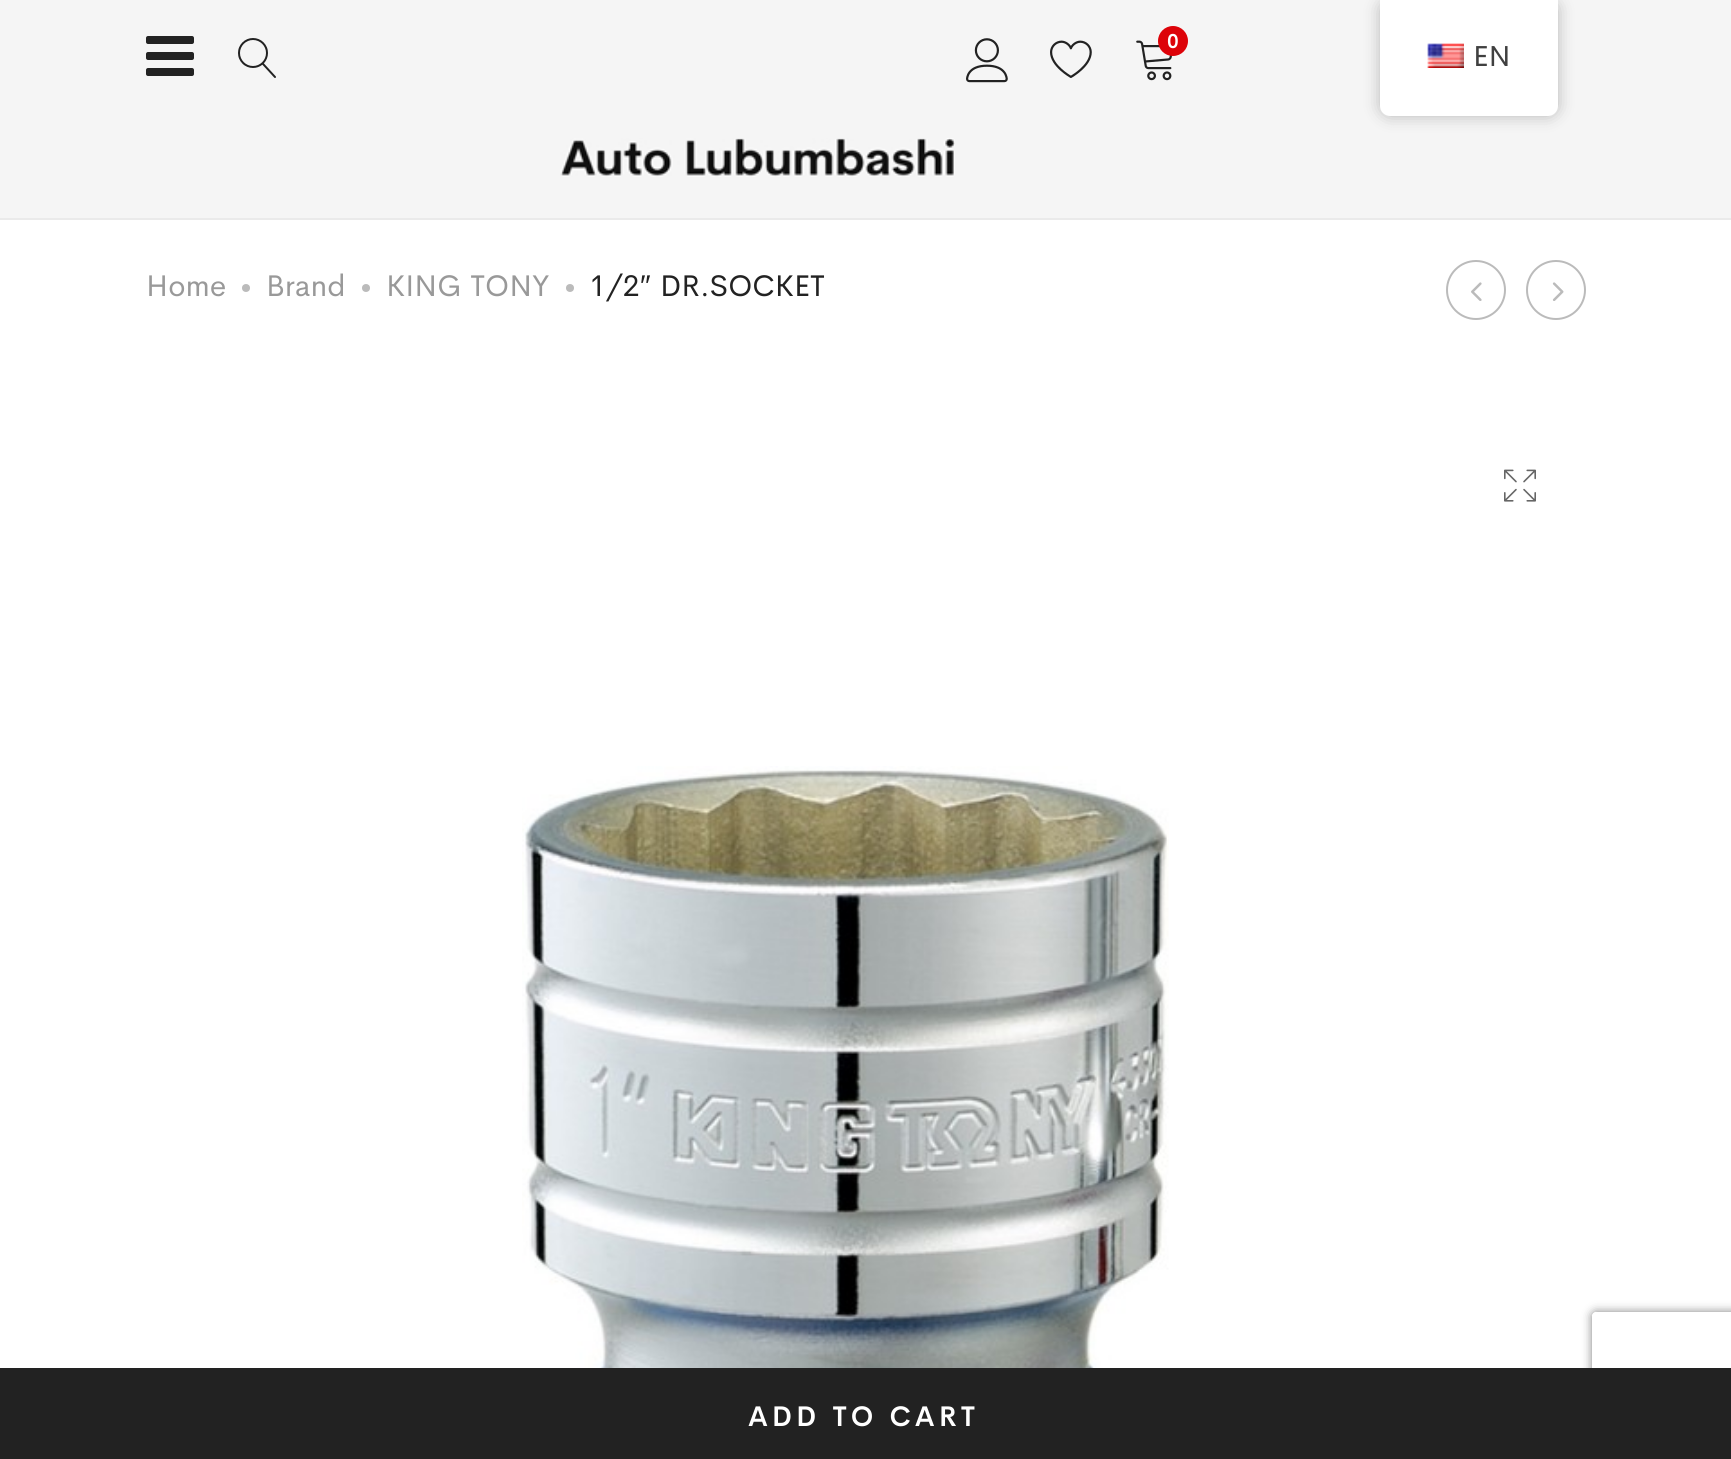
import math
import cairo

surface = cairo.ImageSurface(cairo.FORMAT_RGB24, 1731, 1459)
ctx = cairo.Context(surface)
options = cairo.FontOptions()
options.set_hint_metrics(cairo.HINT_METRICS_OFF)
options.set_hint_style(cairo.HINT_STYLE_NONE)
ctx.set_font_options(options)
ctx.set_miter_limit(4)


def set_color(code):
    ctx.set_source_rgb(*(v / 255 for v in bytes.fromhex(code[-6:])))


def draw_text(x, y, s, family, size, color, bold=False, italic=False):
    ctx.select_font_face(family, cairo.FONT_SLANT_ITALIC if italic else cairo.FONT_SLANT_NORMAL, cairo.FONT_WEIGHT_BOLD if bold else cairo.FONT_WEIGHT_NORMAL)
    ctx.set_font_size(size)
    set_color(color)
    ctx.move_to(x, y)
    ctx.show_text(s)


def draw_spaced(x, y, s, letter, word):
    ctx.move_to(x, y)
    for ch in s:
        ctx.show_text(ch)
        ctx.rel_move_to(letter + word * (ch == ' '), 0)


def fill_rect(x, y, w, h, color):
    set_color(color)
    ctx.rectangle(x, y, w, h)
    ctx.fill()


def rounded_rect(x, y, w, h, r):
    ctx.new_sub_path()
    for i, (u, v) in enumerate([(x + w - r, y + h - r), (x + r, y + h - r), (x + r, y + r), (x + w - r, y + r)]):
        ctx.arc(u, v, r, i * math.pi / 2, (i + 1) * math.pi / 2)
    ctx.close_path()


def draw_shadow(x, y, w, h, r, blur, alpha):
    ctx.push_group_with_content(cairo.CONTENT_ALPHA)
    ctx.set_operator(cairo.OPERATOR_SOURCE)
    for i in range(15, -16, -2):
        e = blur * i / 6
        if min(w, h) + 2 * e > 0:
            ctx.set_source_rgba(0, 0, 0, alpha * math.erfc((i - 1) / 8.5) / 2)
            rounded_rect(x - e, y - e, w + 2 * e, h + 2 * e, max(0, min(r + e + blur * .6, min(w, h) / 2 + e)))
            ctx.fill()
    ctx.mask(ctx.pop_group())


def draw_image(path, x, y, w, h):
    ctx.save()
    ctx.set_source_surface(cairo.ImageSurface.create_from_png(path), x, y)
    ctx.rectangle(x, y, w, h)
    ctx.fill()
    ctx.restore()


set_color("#ffffff")
ctx.paint()
fill_rect(0, 0, 1731, 218, "#f5f5f5")
fill_rect(0, 218, 1731, 2, "#eaeaea")
draw_image("assets/img1.png", 146, 36, 48, 40)
draw_image("assets/img2.png", 238, 38, 38, 40)
draw_image("assets/img3.png", 966, 38, 42, 45)
draw_image("assets/img4.png", 1050, 40, 42, 38)
draw_image("assets/img5.png", 1136, 40, 37, 41)
set_color("#dd0309")
ctx.arc(1173, 41, 15, 0, 2 * math.pi)
ctx.fill()
draw_text(1167, 48, "0", "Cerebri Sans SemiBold", 20, "#ffffff")
draw_image("assets/img6.png", 560, 138, 395, 39)
draw_text(146, 296, "Home", "Cerebri Sans", 30, "#999999")
set_color("#bbbbbb")
ctx.new_path()
ctx.arc(246, 288, 4, 0, 2 * math.pi)
ctx.fill()
draw_text(266, 296, "Brand", "Cerebri Sans", 30, "#999999")
set_color("#bbbbbb")
ctx.new_path()
ctx.arc(366, 288, 4, 0, 2 * math.pi)
ctx.fill()
draw_text(386, 296, "KING TONY", "Cerebri Sans", 30, "#999999")
set_color("#bbbbbb")
ctx.new_path()
ctx.arc(570, 288, 4, 0, 2 * math.pi)
ctx.fill()
draw_text(589, 296, "1/2", "Cerebri Sans", 30, "#222222")
draw_text(640, 296, "″", "Liberation Sans", 30, "#222222")
draw_text(660, 296, "DR.SOCKET", "Cerebri Sans", 30, "#222222")
ctx.new_path()
ctx.arc(1476, 290, 29, 0, 2 * math.pi)
set_color("#bbbbbb")
ctx.stroke()
draw_image("assets/img7.png", 1471, 282, 11, 19)
ctx.arc(1556, 290, 29, 0, 2 * math.pi)
ctx.stroke()
draw_image("assets/img8.png", 1552, 282, 12, 19)
draw_image("assets/img9.png", 1504, 469, 32, 33)
draw_image("assets/img10.png", 522, 766, 647, 602)
ctx.save()
ctx.set_fill_rule(cairo.FILL_RULE_EVEN_ODD)
ctx.new_path()
ctx.move_to(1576, 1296)
ctx.line_to(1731, 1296)
ctx.line_to(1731, 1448)
ctx.line_to(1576, 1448)
ctx.close_path()
ctx.move_to(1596, 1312)
ctx.line_to(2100, 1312)
ctx.curve_to(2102, 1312, 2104, 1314, 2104, 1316)
ctx.line_to(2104, 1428)
ctx.curve_to(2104, 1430, 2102, 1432, 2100, 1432)
ctx.line_to(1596, 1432)
ctx.curve_to(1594, 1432, 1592, 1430, 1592, 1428)
ctx.line_to(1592, 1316)
ctx.curve_to(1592, 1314, 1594, 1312, 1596, 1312)
ctx.close_path()
ctx.clip()
set_color("#808080")
draw_shadow(1592, 1312, 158, 120, 4, 5, 1)
ctx.restore()
fill_rect(0, 1368, 1731, 91, "#222222")
ctx.select_font_face("Cerebri Sans SemiBold")
ctx.set_font_size(28)
set_color("#ffffff")
draw_spaced(748, 1426, "ADD TO CART", 4, 0)
set_color("#000000")
draw_shadow(1380, 0, 178, 116, 10, 8, 0.25)
set_color("#ffffff")
ctx.new_path()
ctx.move_to(1380, 0)
ctx.line_to(1558, 0)
ctx.line_to(1558, 106)
ctx.curve_to(1558, 111.5, 1553.5, 116, 1548, 116)
ctx.line_to(1390, 116)
ctx.curve_to(1384.5, 116, 1380, 111.5, 1380, 106)
ctx.close_path()
ctx.fill()
draw_image("assets/img11.png", 1427, 43, 37, 25)
draw_text(1473, 66, "EN", "Cerebri Sans", 29, "#404040")
surface.write_to_png("output.png")
